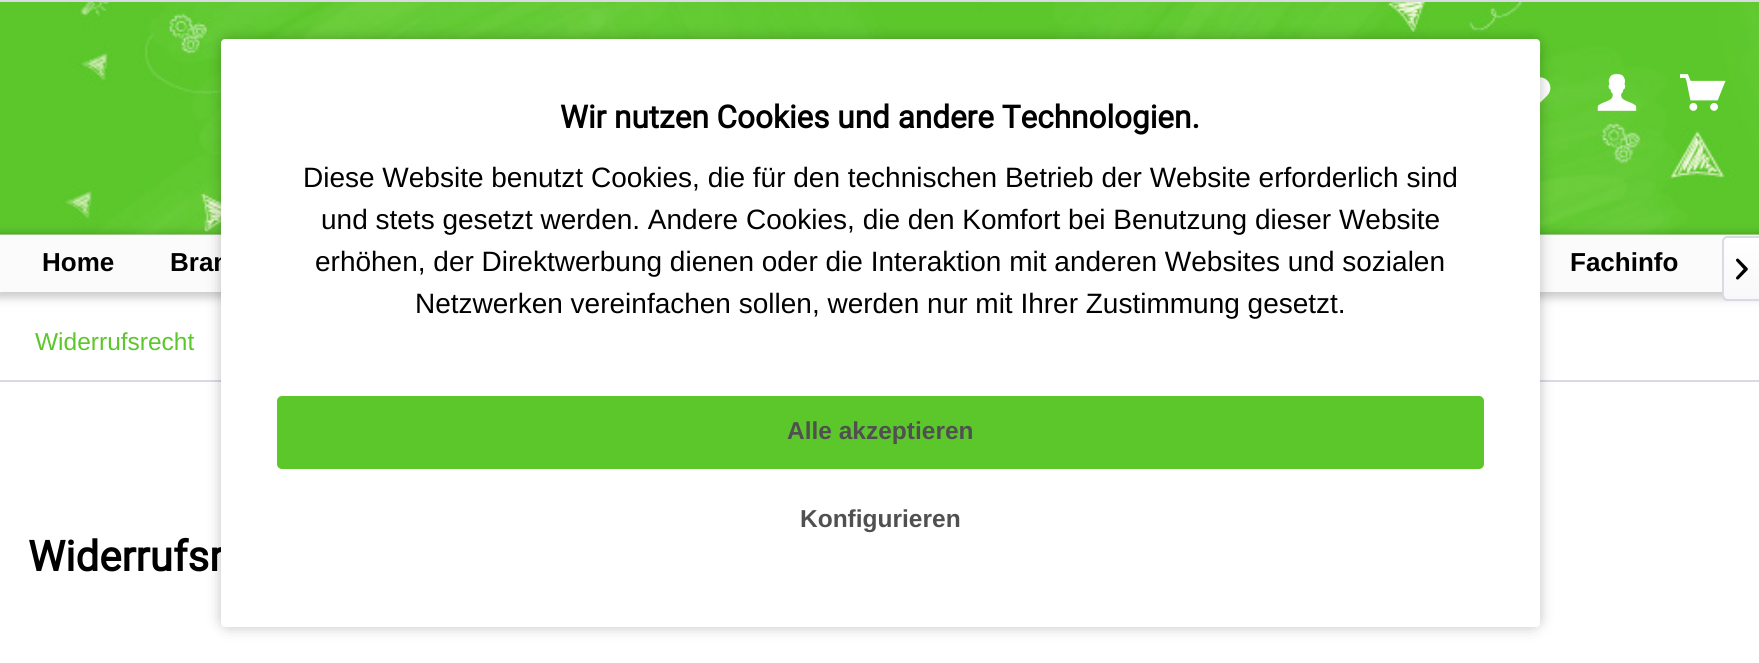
import math
import cairo

surface = cairo.ImageSurface(cairo.FORMAT_RGB24, 1759, 663)
ctx = cairo.Context(surface)
options = cairo.FontOptions()
options.set_hint_metrics(cairo.HINT_METRICS_OFF)
options.set_hint_style(cairo.HINT_STYLE_NONE)
ctx.set_font_options(options)
ctx.set_miter_limit(4)


def set_color(code):
    ctx.set_source_rgb(*(v / 255 for v in bytes.fromhex(code[-6:])))


def draw_text(x, y, s, family, size, color, bold=False, italic=False):
    ctx.select_font_face(family, cairo.FONT_SLANT_ITALIC if italic else cairo.FONT_SLANT_NORMAL, cairo.FONT_WEIGHT_BOLD if bold else cairo.FONT_WEIGHT_NORMAL)
    ctx.set_font_size(size)
    set_color(color)
    ctx.move_to(x, y)
    ctx.show_text(s)


def fill_rect(x, y, w, h, color):
    set_color(color)
    ctx.rectangle(x, y, w, h)
    ctx.fill()


def rounded_rect(x, y, w, h, r):
    ctx.new_sub_path()
    for i, (u, v) in enumerate([(x + w - r, y + h - r), (x + r, y + h - r), (x + r, y + r), (x + w - r, y + r)]):
        ctx.arc(u, v, r, i * math.pi / 2, (i + 1) * math.pi / 2)
    ctx.close_path()


def draw_shadow(x, y, w, h, r, blur, alpha):
    ctx.push_group_with_content(cairo.CONTENT_ALPHA)
    ctx.set_operator(cairo.OPERATOR_SOURCE)
    for i in range(15, -16, -2):
        e = blur * i / 6
        if min(w, h) + 2 * e > 0:
            ctx.set_source_rgba(0, 0, 0, alpha * math.erfc((i - 1) / 8.5) / 2)
            rounded_rect(x - e, y - e, w + 2 * e, h + 2 * e, max(0, min(r + e + blur * .6, min(w, h) / 2 + e)))
            ctx.fill()
    ctx.mask(ctx.pop_group())


def draw_image(path, x, y, w, h):
    ctx.save()
    ctx.set_source_surface(cairo.ImageSurface.create_from_png(path), x, y)
    ctx.rectangle(x, y, w, h)
    ctx.fill()
    ctx.restore()


set_color("#ffffff")
ctx.paint()
fill_rect(0, 0, 1759, 2, "#dadae5")
draw_image("assets/img1.png", 0, 2, 1759, 233)
draw_image("assets/img2.png", 1540, 77, 11, 26)
set_color("#000000")
draw_shadow(-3, 233, 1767, 65, 0, 4.5, 0.2)
fill_rect(0, 291, 1722, 1, "#fbfbfb")
fill_rect(0, 235, 1759, 56, "#fbfbfb")
fill_rect(0, 380, 1759, 2, "#dadae5")
set_color("#000000")
draw_shadow(228, 46, 1305, 574, 0, 9, 0.6)
draw_text(170, 271, "Bran", "Liberation Sans", 26, "#000000", bold=True)
draw_text(28, 571, "Widerrufsr", "Roboto", 42, "#000000", bold=True)
set_color("#ffffff")
rounded_rect(221, 39, 1319, 588, 4)
ctx.fill()
draw_text(560, 128, "Wir nutzen Cookies und andere Technologien.", "Roboto", 31.5, "#000000", bold=True)
draw_text(303, 187, "Diese Website benutzt Cookies, die für den technischen Betrieb der Website erforderlich sind", "Liberation Sans", 28, "#000000")
draw_text(321, 229, "und stets gesetzt werden. Andere Cookies, die den Komfort bei Benutzung dieser Website", "Liberation Sans", 28, "#000000")
draw_text(315, 271, "erhöhen, der Direktwerbung dienen oder die Interaktion mit anderen Websites und sozialen", "Liberation Sans", 28, "#000000")
draw_text(415, 313, "Netzwerken vereinfachen sollen, werden nur mit Ihrer Zustimmung gesetzt.", "Liberation Sans", 28, "#000000")
set_color("#5bc72b")
rounded_rect(277, 396, 1207, 73, 5)
ctx.fill()
draw_text(787, 439, "Alle akzeptieren", "Liberation Sans", 24.5, "#505051", bold=True)
draw_text(800, 527, "Konfigurieren", "Liberation Sans", 24.5, "#505051", bold=True)
draw_image("assets/img3.png", 1597, 74, 40, 37)
draw_image("assets/img4.png", 1680, 74, 46, 37)
draw_text(42, 271, "Home", "Liberation Sans", 26, "#000000", bold=True)
draw_text(1570, 271, "Fachinfo", "Liberation Sans", 26, "#000000", bold=True)
gradient = cairo.LinearGradient(1742, 238, 1742, 299)
gradient.add_color_stop_rgba(0, 1, 1, 1, 1)
gradient.add_color_stop_rgba(1, 0.973, 0.973, 0.98, 1)
ctx.set_source(gradient)
ctx.new_path()
ctx.move_to(1728, 238)
ctx.line_to(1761, 238)
ctx.line_to(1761, 299)
ctx.line_to(1728, 299)
ctx.curve_to(1726, 299, 1724, 297, 1724, 295)
ctx.line_to(1724, 242)
ctx.curve_to(1724, 240, 1726, 238, 1728, 238)
ctx.close_path()
ctx.fill()
set_color("#dadae5")
ctx.set_fill_rule(cairo.FILL_RULE_EVEN_ODD)
ctx.new_path()
ctx.move_to(1727, 236)
ctx.line_to(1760, 236)
ctx.line_to(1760, 301)
ctx.line_to(1727, 301)
ctx.curve_to(1724, 301, 1722, 299, 1722, 296)
ctx.line_to(1722, 242)
ctx.curve_to(1722, 239, 1724, 236, 1727, 236)
ctx.close_path()
ctx.move_to(1727, 238)
ctx.line_to(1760, 238)
ctx.line_to(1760, 299)
ctx.line_to(1727, 299)
ctx.curve_to(1725, 299, 1724, 298, 1724, 296)
ctx.line_to(1724, 242)
ctx.curve_to(1724, 240, 1725, 238, 1727, 238)
ctx.close_path()
ctx.fill()
draw_image("assets/img5.png", 1736, 258, 12, 22)
draw_text(35, 350, "Widerrufsrecht", "Liberation Sans", 24.5, "#5bc72b")
surface.write_to_png("output.png")
